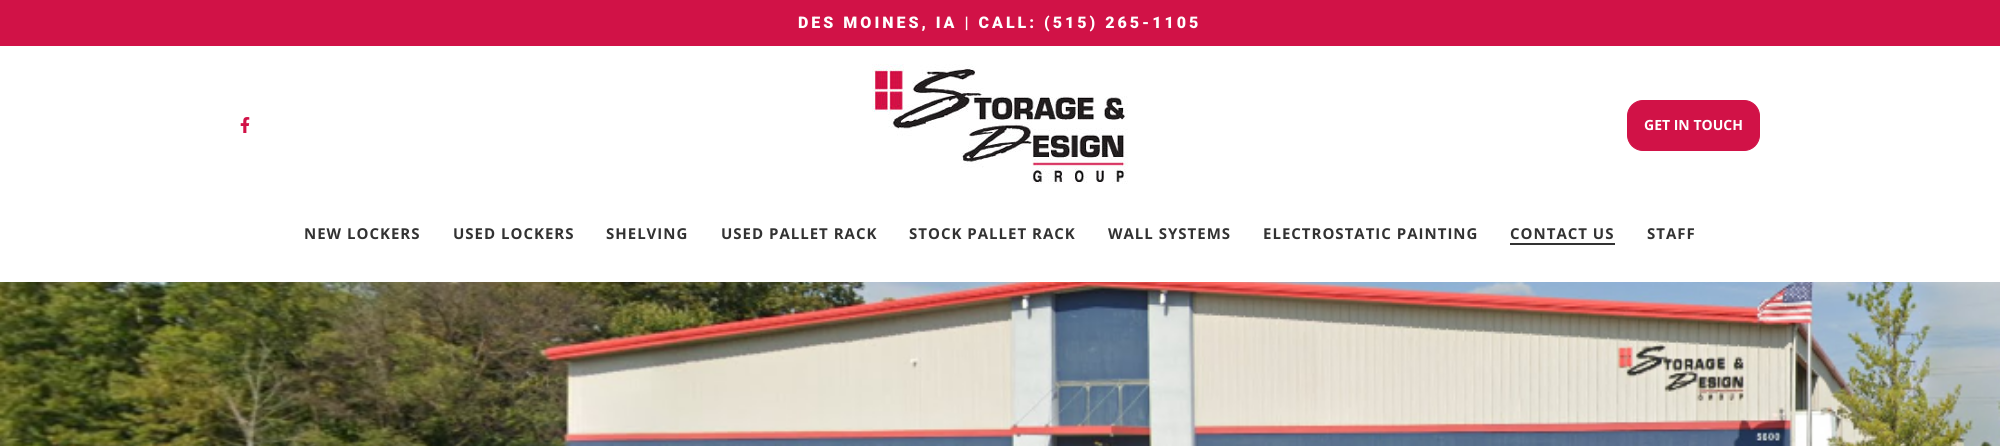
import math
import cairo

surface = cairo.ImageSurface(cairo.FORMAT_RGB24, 2000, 446)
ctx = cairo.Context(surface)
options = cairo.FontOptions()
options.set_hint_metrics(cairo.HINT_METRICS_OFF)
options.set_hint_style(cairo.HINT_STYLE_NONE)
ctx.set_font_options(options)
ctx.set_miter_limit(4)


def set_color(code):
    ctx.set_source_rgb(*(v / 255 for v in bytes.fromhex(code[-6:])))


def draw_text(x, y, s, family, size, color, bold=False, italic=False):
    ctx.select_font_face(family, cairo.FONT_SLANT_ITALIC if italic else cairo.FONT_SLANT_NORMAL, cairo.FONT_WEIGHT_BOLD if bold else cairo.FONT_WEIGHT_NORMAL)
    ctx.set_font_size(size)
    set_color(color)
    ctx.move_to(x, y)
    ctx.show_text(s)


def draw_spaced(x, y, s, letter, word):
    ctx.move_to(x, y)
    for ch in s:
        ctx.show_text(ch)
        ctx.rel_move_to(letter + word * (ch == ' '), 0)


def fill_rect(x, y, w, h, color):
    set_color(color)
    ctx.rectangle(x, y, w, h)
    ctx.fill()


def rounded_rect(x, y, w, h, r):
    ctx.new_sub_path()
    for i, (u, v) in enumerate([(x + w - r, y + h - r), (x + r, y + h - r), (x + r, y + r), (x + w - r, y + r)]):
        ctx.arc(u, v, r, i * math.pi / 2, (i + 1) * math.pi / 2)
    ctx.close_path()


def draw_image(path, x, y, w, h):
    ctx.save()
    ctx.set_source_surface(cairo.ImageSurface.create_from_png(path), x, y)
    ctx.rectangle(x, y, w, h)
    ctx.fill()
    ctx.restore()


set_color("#ffffff")
ctx.paint()
fill_rect(0, 0, 2000, 46, "#d11247")
ctx.select_font_face("Roboto Black")
ctx.set_font_size(16)
set_color("#ffffff")
draw_spaced(798, 28, "DES MOINES, IA | CALL: (515) 265-1105", 3, 0)
draw_image("assets/img1.png", 240, 117, 10, 16)
draw_image("assets/img2.png", 872, 64, 256, 120)
set_color("#d11247")
rounded_rect(1627.5, 100.5, 132, 50, 15.5)
ctx.fill_preserve()
ctx.set_line_width(1)
ctx.stroke()
draw_text(1644, 130, "GET IN TOUCH", "Open Sans", 14, "#ffffff", bold=True)
ctx.set_font_size(15)
set_color("#323232")
draw_spaced(304, 239, "NEW LOCKERS", 1, 0)
draw_spaced(453, 239, "USED LOCKERS", 1, 0)
draw_spaced(606, 239, "SHELVING", 1, 0)
draw_spaced(721, 239, "USED PALLET RACK", 1, 0)
draw_spaced(909, 239, "STOCK PALLET RACK", 1, 0)
draw_spaced(1108, 239, "WALL SYSTEMS", 1, 0)
draw_spaced(1263, 239, "ELECTROSTATIC PAINTING", 1, 0)
draw_spaced(1510, 239, "CONTACT US", 1, 0)
fill_rect(1510, 243, 105, 2, "#323232")
draw_spaced(1647, 239, "STAFF", 1, 0)
draw_image("assets/img3.png", 0, 282, 2000, 164)
surface.write_to_png("output.png")
